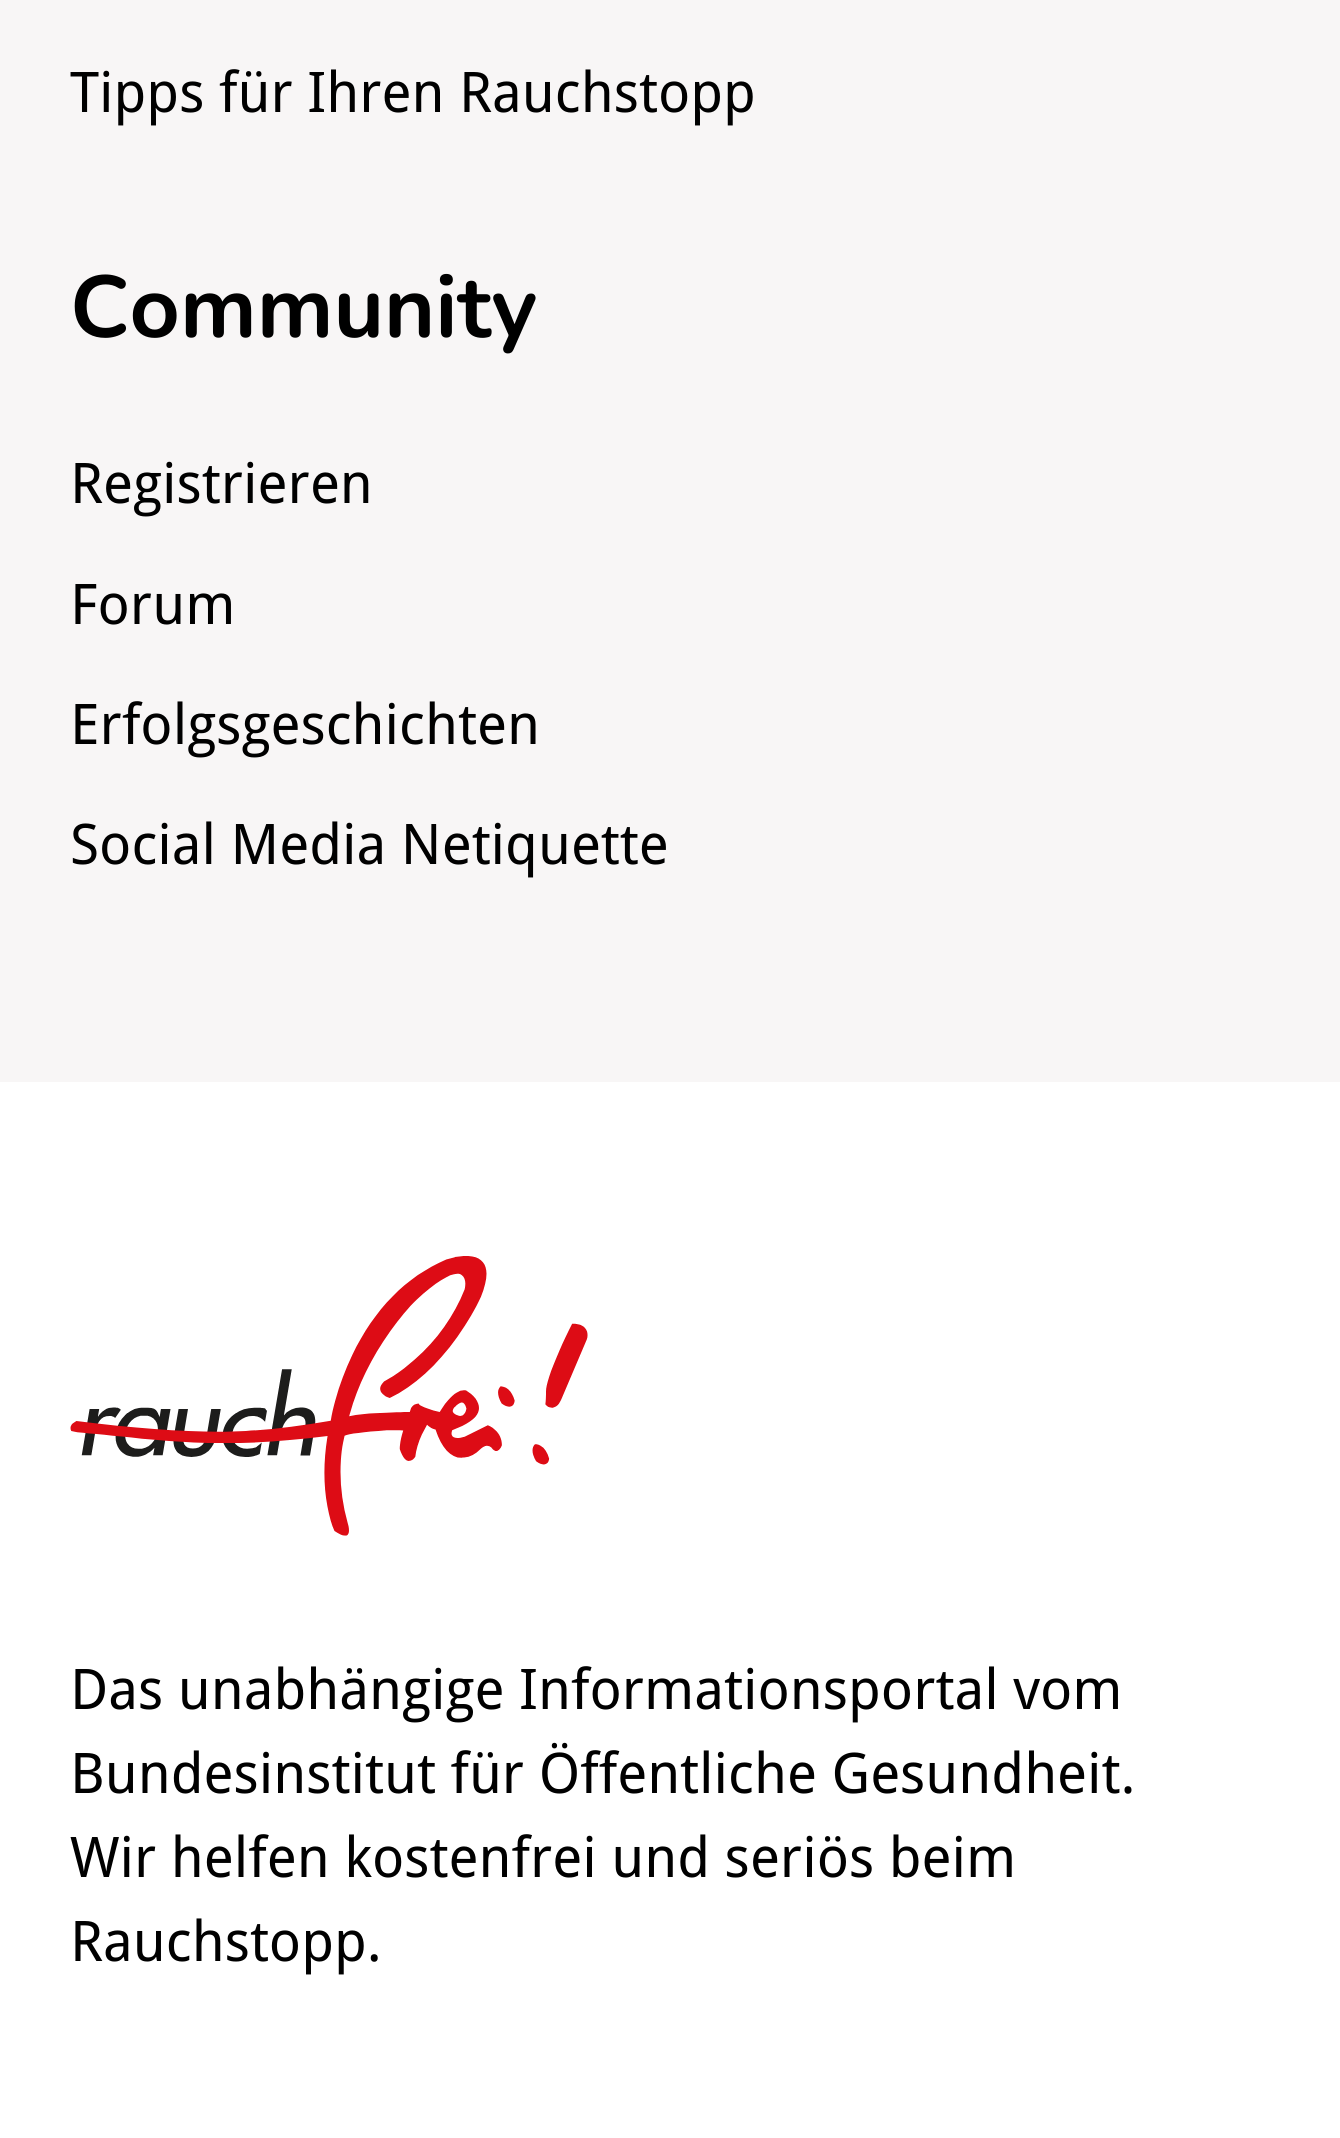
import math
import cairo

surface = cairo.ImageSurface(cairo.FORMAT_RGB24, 1340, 2138)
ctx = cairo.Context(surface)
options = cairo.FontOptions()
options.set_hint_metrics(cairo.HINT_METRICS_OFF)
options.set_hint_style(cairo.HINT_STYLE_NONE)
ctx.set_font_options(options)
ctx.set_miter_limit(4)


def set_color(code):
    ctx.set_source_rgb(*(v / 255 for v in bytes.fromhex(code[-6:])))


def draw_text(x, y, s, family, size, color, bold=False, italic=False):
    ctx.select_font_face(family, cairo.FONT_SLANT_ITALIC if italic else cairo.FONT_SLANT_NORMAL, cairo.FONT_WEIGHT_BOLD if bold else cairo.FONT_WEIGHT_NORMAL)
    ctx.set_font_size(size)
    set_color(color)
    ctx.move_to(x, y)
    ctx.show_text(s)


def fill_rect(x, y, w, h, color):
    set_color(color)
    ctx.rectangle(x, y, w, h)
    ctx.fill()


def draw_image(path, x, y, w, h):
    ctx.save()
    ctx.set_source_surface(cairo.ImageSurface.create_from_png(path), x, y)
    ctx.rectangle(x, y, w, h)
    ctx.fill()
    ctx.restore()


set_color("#ffffff")
ctx.paint()
fill_rect(0, 0, 1340, 1082, "#f8f6f6")
draw_text(70, 112, "Tipps für Ihren Rauchstopp", "Droid Sans", 56, "#000000")
draw_text(70, 337, "Community", "Nunito ExtraLight", 87.5, "#000000")
draw_text(70, 503, "Registrieren", "Droid Sans", 56, "#000000")
draw_text(70, 624, "Forum", "Droid Sans", 56, "#000000")
draw_text(70, 744, "Erfolgsgeschichten", "Droid Sans", 56, "#000000")
draw_text(70, 864, "Social Media Netiquette", "Droid Sans", 56, "#000000")
draw_image("assets/img1.png", 70, 1256, 518, 280)
draw_text(70, 1709, "Das unabhängige Informationsportal vom", "Droid Sans", 56, "#000000")
draw_text(70, 1793, "Bundesinstitut für Öffentliche Gesundheit.", "Droid Sans", 56, "#000000")
draw_text(70, 1877, "Wir helfen kostenfrei und seriös beim", "Droid Sans", 56, "#000000")
draw_text(70, 1961, "Rauchstopp.", "Droid Sans", 56, "#000000")
surface.write_to_png("output.png")
